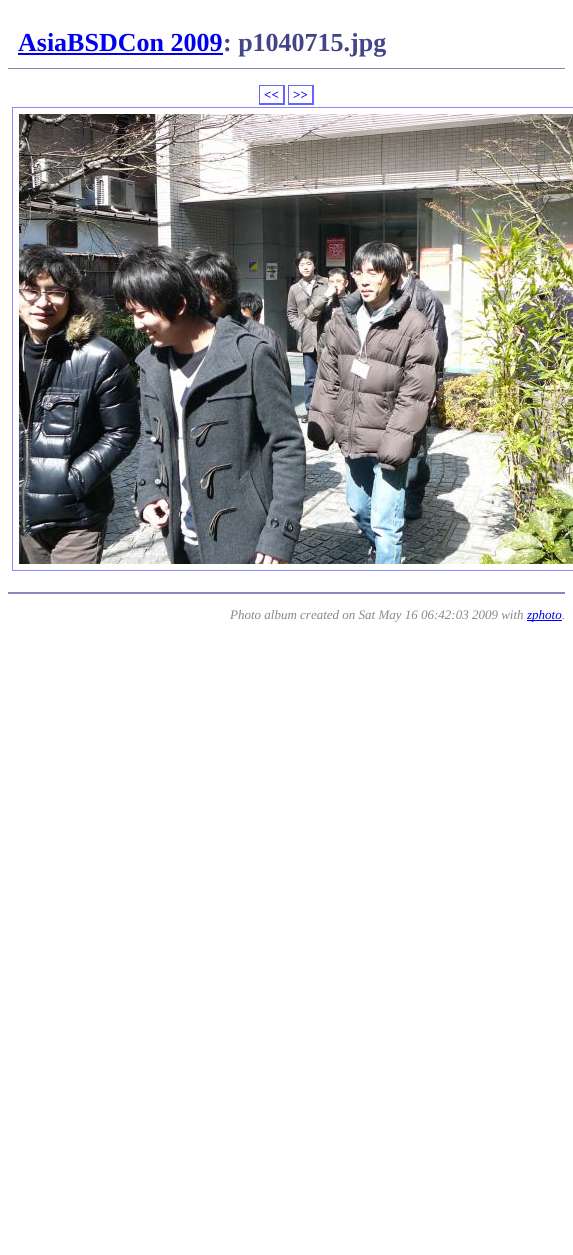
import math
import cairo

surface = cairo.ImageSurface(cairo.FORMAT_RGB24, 573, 1255)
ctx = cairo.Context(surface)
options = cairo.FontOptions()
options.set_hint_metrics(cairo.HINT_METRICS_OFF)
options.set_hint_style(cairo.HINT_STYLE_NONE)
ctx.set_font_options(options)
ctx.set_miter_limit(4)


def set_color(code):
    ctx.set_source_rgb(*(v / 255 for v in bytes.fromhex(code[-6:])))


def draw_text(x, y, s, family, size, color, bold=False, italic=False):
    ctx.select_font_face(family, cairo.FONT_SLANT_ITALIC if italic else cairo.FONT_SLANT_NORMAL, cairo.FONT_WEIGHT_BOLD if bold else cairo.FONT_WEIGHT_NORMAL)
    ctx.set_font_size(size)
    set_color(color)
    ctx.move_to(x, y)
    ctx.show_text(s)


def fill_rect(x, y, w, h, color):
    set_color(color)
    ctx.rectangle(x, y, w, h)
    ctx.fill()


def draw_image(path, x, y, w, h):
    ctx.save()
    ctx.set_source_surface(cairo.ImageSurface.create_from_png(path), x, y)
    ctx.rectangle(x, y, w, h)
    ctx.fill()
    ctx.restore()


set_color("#ffffff")
ctx.paint()
fill_rect(8, 68, 557, 1, "#8888bb")
draw_text(18, 51, "AsiaBSDCon 2009", "Liberation Serif", 26, "#0000ee", bold=True)
fill_rect(18, 53, 205, 2, "#0000ee")
draw_text(223, 51, ": p1040715.jpg", "Liberation Serif", 26, "#444488", bold=True)
draw_text(264, 99, "<<", "Liberation Serif", 13, "#0000ff", bold=True)
fill_rect(259, 85, 26, 1, "#6666ff")
fill_rect(283, 85, 2, 20, "#6666ff")
fill_rect(259, 103, 26, 2, "#6666ff")
fill_rect(259, 85, 1, 20, "#6666ff")
draw_text(293, 99, ">>", "Liberation Serif", 13, "#0000ff", bold=True)
fill_rect(288, 85, 26, 1, "#6666ff")
fill_rect(312, 85, 2, 20, "#6666ff")
fill_rect(288, 103, 26, 2, "#6666ff")
fill_rect(288, 85, 1, 20, "#6666ff")
ctx.rectangle(12.5, 107.5, 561, 463)
set_color("#8888ff")
ctx.set_line_width(1)
ctx.stroke()
draw_image("assets/img1.png", 19, 114, 554, 450)
fill_rect(8, 592, 557, 2, "#8888bb")
draw_text(230, 619, "Photo album created on Sat May 16 06:42:03 2009 with", "Liberation Serif", 13, "#888888", italic=True)
fill_rect(527, 620, 35, 1, "#0000ee")
draw_text(527, 619, "zphoto", "Liberation Serif", 13, "#0000ee", italic=True)
draw_text(562, 619, ".", "Liberation Serif", 13, "#888888", italic=True)
surface.write_to_png("output.png")
